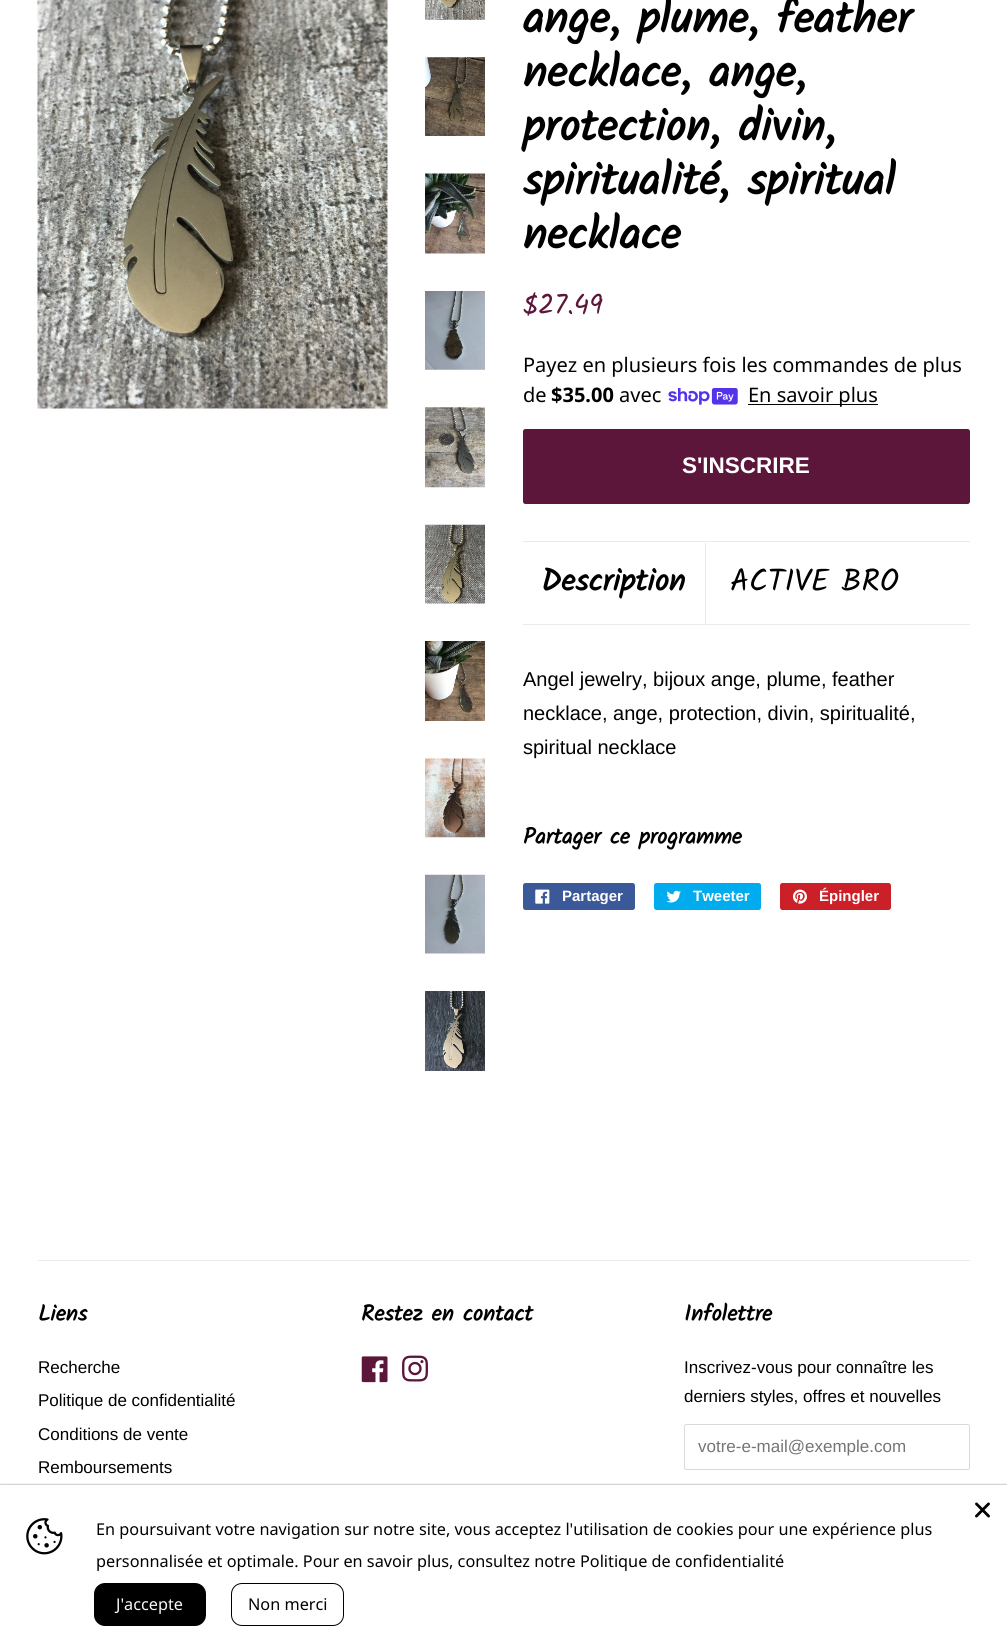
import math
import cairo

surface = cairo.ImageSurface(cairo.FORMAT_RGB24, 1007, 1651)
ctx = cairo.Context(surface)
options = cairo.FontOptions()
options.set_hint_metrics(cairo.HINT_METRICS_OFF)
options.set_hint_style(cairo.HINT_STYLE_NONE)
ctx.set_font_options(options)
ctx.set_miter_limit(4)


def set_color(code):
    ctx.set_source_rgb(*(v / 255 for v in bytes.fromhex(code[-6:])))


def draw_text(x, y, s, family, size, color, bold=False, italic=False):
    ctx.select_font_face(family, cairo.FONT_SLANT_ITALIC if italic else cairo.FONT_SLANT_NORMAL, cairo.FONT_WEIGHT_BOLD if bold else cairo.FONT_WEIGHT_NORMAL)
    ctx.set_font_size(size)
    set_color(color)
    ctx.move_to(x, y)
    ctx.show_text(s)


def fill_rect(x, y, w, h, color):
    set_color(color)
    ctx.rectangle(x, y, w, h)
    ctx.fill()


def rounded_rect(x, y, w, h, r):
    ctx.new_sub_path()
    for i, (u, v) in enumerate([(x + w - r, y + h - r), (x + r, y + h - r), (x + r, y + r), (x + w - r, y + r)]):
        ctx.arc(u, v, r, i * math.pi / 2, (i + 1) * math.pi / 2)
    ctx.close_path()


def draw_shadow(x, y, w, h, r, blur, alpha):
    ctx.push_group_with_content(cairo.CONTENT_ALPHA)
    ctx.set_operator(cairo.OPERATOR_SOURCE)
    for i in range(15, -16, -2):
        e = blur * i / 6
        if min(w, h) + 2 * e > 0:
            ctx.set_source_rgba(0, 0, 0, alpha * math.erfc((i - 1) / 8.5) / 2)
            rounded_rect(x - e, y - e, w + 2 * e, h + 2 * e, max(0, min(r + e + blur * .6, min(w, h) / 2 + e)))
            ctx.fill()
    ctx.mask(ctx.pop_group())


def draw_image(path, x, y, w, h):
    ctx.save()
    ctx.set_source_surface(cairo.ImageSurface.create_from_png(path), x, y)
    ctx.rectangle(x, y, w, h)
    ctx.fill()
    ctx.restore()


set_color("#ffffff")
ctx.paint()
draw_image("assets/img1.png", 37, 0, 351, 409)
draw_image("assets/img2.png", 425, 0, 60, 20)
draw_image("assets/img3.png", 425, 57, 60, 79)
draw_image("assets/img4.png", 425, 173, 60, 81)
draw_image("assets/img5.png", 425, 291, 60, 79)
draw_image("assets/img6.png", 425, 407, 60, 81)
draw_image("assets/img7.png", 425, 524, 60, 80)
draw_image("assets/img8.png", 425, 641, 60, 80)
draw_image("assets/img9.png", 425, 758, 60, 80)
draw_image("assets/img10.png", 425, 874, 60, 80)
draw_image("assets/img11.png", 425, 991, 60, 80)
draw_text(523, 33, "ange, plume, feather", "Kalam", 45, "#000000", bold=True)
draw_text(523, 87, "necklace, ange,", "Kalam", 45, "#000000", bold=True)
draw_text(523, 141, "protection, divin,", "Kalam", 45, "#000000", bold=True)
draw_text(523, 195, "spiritualité, spiritual", "Kalam", 45, "#000000", bold=True)
draw_text(523, 249, "necklace", "Kalam", 45, "#000000", bold=True)
draw_text(523, 314, "$27.49", "Kalam", 28, "#5c1639")
draw_text(523, 372, "Payez en plusieurs fois les commandes de plus", "Noto Sans", 20, "#000000")
draw_text(523, 402, "de", "Noto Sans", 20, "#000000")
draw_text(551, 402, "$35.00", "Noto Sans", 20, "#000000", bold=True)
draw_text(619, 402, "avec", "Noto Sans", 20, "#000000")
draw_image("assets/img12.png", 668, 388, 70, 17)
fill_rect(748, 404, 130, 1, "#000000")
draw_text(748, 402, "En savoir plus", "Noto Sans", 20, "#000000")
set_color("#5c1639")
rounded_rect(523, 429, 447, 75, 2.5)
ctx.fill()
draw_text(682, 473, "S'INSCRIRE", "Arimo", 22.5, "#ffffff", bold=True)
fill_rect(523, 541, 447, 1, "#ebebeb")
fill_rect(523, 624, 447, 1, "#ebebeb")
fill_rect(705, 543, 1, 81, "#ebebeb")
draw_text(541, 591, "Description", "Kalam", 31.25, "#000000", bold=True)
draw_text(730, 591, "ACTIVE BRO", "Kalam", 31.25, "#000000")
draw_text(523, 686, "Angel jewelry, bijoux ange, plume, feather", "Arimo", 20, "#000000")
draw_text(523, 720, "necklace, ange, protection, divin, spiritualité,", "Arimo", 20, "#000000")
draw_text(523, 754, "spiritual necklace", "Arimo", 20, "#000000")
draw_text(523, 844, "Partager ce programme", "Kalam", 22.5, "#000000", bold=True)
set_color("#3b5998")
rounded_rect(523, 883, 112, 27, 2.5)
ctx.fill()
draw_image("assets/img13.png", 535, 889, 15, 15)
draw_text(562, 901, "Partager", "Liberation Sans", 15, "#ffffff", bold=True)
set_color("#00aced")
rounded_rect(654, 883, 107, 27, 2.5)
ctx.fill()
draw_image("assets/img14.png", 666, 890, 15, 13)
draw_text(693, 901, "Tweeter", "Liberation Sans", 15, "#ffffff", bold=True)
set_color("#cb2027")
rounded_rect(780, 883, 111, 27, 2.5)
ctx.fill()
draw_image("assets/img15.png", 792, 889, 15, 15)
draw_text(819, 901, "Épingler", "Liberation Sans", 15, "#ffffff", bold=True)
fill_rect(38, 1260, 932, 1, "#ebebeb")
draw_text(38, 1321, "Liens", "Kalam", 22.5, "#000000", bold=True)
draw_text(38, 1373, "Recherche", "Arimo", 17, "#000000")
draw_text(38, 1406, "Politique de confidentialité", "Arimo", 17, "#000000")
draw_text(38, 1440, "Conditions de vente", "Arimo", 17, "#000000")
draw_text(38, 1473, "Remboursements", "Arimo", 17, "#000000")
draw_text(361, 1321, "Restez en contact", "Kalam", 22.5, "#000000", bold=True)
draw_image("assets/img16.png", 361, 1356, 27, 27)
draw_image("assets/img17.png", 402, 1355, 26, 27)
draw_text(684, 1321, "Infolettre", "Kalam", 22.5, "#000000", bold=True)
draw_text(684, 1373, "Inscrivez-vous pour connaître les", "Arimo", 17, "#000000")
draw_text(684, 1402, "derniers styles, offres et nouvelles", "Arimo", 17, "#000000")
rounded_rect(684.5, 1424.5, 285, 45, 2)
set_color("#d9d9d9")
ctx.set_line_width(1)
ctx.stroke()
draw_text(698, 1452, "votre-e-mail@exemple.com", "Arimo", 17, "#757575")
set_color("#000000")
draw_shadow(0, 1485, 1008, 166, 0, 1, 0.5)
fill_rect(0, 1485, 1007, 166, "#ffffff")
draw_image("assets/img18.png", 975, 1502, 15, 16)
draw_image("assets/img19.png", 26, 1518, 37, 37)
draw_text(96, 1535, "En poursuivant votre navigation sur notre site, vous acceptez l'utilisation de cookies pour une expérience plus", "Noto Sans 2", 16.25, "#000000")
draw_text(96, 1567, "personnalisée et optimale. Pour en savoir plus, consultez notre Politique de confidentialité", "Noto Sans 2", 16.25, "#000000")
rounded_rect(94, 1583, 112, 43, 11)
ctx.fill()
draw_text(116, 1610, "J'accepte", "Noto Sans 2", 16.25, "#f8f8f8")
rounded_rect(231.5, 1583.5, 112, 42, 10.5)
set_color("#000000")
ctx.stroke()
draw_text(248, 1610, "Non merci", "Noto Sans 2", 16.25, "#000000")
surface.write_to_png("output.png")
